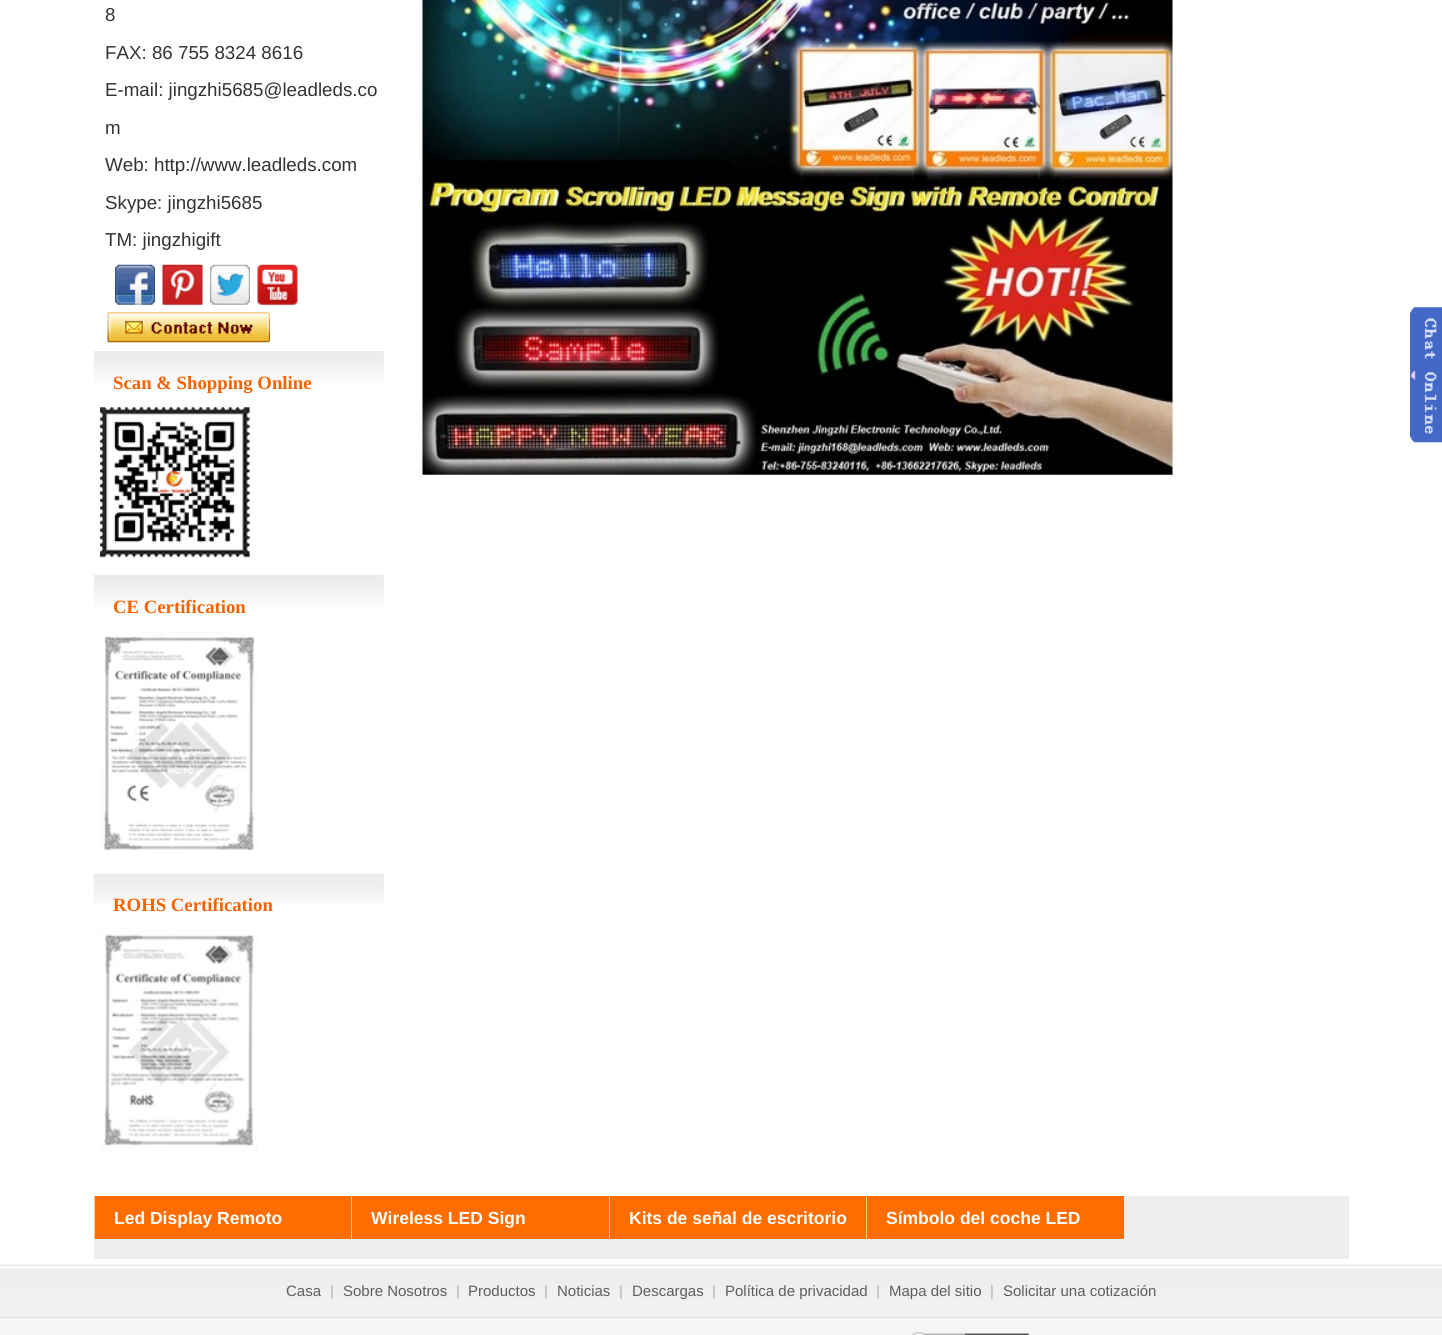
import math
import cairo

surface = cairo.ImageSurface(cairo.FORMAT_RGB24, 1442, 1335)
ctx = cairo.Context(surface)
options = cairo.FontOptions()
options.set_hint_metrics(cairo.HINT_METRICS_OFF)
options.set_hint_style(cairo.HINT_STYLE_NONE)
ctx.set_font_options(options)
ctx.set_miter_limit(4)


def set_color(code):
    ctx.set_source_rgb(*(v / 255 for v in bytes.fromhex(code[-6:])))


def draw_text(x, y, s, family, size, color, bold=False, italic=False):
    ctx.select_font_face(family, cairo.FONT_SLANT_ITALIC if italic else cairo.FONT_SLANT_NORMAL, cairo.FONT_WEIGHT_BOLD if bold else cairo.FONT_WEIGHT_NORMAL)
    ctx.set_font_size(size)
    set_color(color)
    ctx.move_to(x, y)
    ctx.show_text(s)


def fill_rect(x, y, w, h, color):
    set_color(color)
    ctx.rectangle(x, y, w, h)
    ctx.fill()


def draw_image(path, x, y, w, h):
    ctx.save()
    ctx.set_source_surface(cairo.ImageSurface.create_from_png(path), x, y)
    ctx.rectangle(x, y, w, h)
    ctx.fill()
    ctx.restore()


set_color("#ffffff")
ctx.paint()
draw_text(105, 21, "8", "Liberation Sans", 18.75, "#333333")
draw_text(105, 59, "FAX: 86 755 8324 8616", "Liberation Sans", 18.75, "#333333")
draw_text(105, 96, "E-mail: jingzhi5685@leadleds.co", "Liberation Sans", 18.75, "#333333")
draw_text(105, 134, "m", "Liberation Sans", 18.75, "#333333")
draw_text(105, 171, "Web: http://www.leadleds.com", "Liberation Sans", 18.75, "#333333")
draw_text(105, 209, "Skype: jingzhi5685", "Liberation Sans", 18.75, "#333333")
draw_text(105, 246, "TM: jingzhigift", "Liberation Sans", 18.75, "#333333")
draw_image("assets/img1.png", 115, 264, 40, 41)
draw_image("assets/img2.png", 162, 264, 41, 41)
draw_image("assets/img3.png", 210, 264, 40, 41)
draw_image("assets/img4.png", 257, 264, 41, 41)
draw_image("assets/img5.png", 107, 312, 163, 31)
draw_image("assets/img6.png", 93, 351, 291, 32)
draw_text(113, 389, "Scan & Shopping Online", "Liberation Serif", 18.75, "#f96200", bold=True)
draw_image("assets/img7.png", 100, 407, 150, 151)
draw_image("assets/img8.png", 93, 574, 291, 33)
draw_text(113, 613, "CE Certification", "Liberation Serif", 18.75, "#f96200", bold=True)
draw_image("assets/img9.png", 100, 631, 158, 220)
draw_image("assets/img10.png", 93, 873, 291, 32)
draw_text(113, 911, "ROHS Certification", "Liberation Serif", 18.75, "#f96200", bold=True)
draw_image("assets/img11.png", 100, 930, 158, 222)
draw_image("assets/img12.png", 419, 0, 755, 477)
fill_rect(94, 1196, 1255, 63, "#eeeeee")
fill_rect(95, 1196, 256, 43, "#ff6d00")
fill_rect(94, 1196, 1, 43, "#f6cd84")
draw_text(114, 1224, "Led Display Remoto", "Liberation Sans", 17.5, "#ffffff", bold=True)
fill_rect(352, 1196, 257, 43, "#ff6d00")
fill_rect(351, 1196, 1, 43, "#f6cd84")
draw_text(371, 1224, "Wireless LED Sign", "Liberation Sans", 17.5, "#ffffff", bold=True)
fill_rect(610, 1196, 256, 43, "#ff6d00")
fill_rect(609, 1196, 1, 43, "#f6cd84")
draw_text(629, 1224, "Kits de señal de escritorio", "Liberation Sans", 17.5, "#ffffff", bold=True)
fill_rect(867, 1196, 257, 43, "#ff6d00")
fill_rect(866, 1196, 1, 43, "#f6cd84")
draw_text(886, 1224, "Símbolo del coche LED", "Liberation Sans", 17.5, "#ffffff", bold=True)
draw_image("assets/img13.png", 1410, 307, 32, 136)
draw_image("assets/img14.png", 0, 1264, 1442, 71)
draw_text(286, 1296, "Casa", "Liberation Sans", 15, "#5e5e5e")
draw_text(330, 1296, "|", "Liberation Sans", 15, "#afafaf")
draw_text(343, 1296, "Sobre Nosotros", "Liberation Sans", 15, "#5e5e5e")
draw_text(456, 1296, "|", "Liberation Sans", 15, "#afafaf")
draw_text(468, 1296, "Productos", "Liberation Sans", 15, "#5e5e5e")
draw_text(544, 1296, "|", "Liberation Sans", 15, "#afafaf")
draw_text(557, 1296, "Noticias", "Liberation Sans", 15, "#5e5e5e")
draw_text(619, 1296, "|", "Liberation Sans", 15, "#afafaf")
draw_text(632, 1296, "Descargas", "Liberation Sans", 15, "#5e5e5e")
draw_text(712, 1296, "|", "Liberation Sans", 15, "#afafaf")
draw_text(725, 1296, "Política de privacidad", "Liberation Sans", 15, "#5e5e5e")
draw_text(876, 1296, "|", "Liberation Sans", 15, "#afafaf")
draw_text(889, 1296, "Mapa del sitio", "Liberation Sans", 15, "#5e5e5e")
draw_text(990, 1296, "|", "Liberation Sans", 15, "#afafaf")
draw_text(1003, 1296, "Solicitar una cotización", "Liberation Sans", 15, "#5e5e5e")
draw_image("assets/img15.png", 911, 1332, 118, 3)
surface.write_to_png("output.png")
